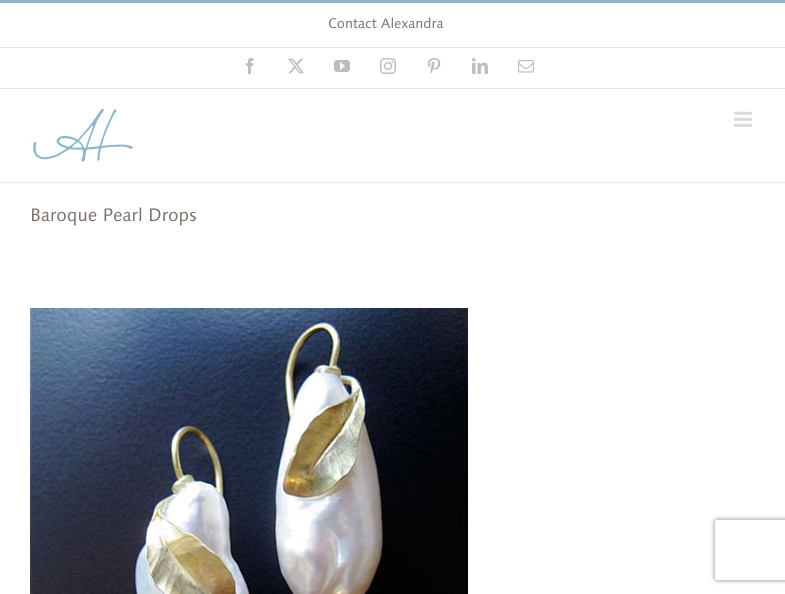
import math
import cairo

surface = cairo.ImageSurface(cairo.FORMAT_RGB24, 785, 594)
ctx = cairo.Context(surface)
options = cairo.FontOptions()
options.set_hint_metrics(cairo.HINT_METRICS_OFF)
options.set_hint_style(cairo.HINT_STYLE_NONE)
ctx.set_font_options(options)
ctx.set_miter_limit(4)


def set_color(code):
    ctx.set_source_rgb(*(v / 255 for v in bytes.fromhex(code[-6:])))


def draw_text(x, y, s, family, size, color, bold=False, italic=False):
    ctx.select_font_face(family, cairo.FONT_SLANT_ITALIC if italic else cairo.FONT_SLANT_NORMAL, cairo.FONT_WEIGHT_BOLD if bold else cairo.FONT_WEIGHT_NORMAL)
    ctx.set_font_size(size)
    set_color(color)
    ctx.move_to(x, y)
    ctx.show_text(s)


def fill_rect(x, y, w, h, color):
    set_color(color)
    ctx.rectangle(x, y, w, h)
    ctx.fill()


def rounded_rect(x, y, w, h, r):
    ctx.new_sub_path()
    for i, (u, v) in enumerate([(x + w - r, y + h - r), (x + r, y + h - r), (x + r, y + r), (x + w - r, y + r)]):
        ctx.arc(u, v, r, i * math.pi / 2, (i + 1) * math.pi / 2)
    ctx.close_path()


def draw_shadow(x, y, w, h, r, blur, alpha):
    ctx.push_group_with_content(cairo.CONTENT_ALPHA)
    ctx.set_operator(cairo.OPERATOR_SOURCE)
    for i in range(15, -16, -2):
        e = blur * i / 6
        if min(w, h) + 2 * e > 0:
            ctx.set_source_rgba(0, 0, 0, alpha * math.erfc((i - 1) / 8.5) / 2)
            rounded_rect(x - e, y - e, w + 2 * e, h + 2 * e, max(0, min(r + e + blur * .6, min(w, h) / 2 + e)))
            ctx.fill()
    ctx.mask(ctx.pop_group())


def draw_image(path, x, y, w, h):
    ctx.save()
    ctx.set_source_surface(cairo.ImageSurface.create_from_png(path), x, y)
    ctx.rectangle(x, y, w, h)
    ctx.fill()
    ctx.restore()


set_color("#ffffff")
ctx.paint()
fill_rect(0, 0, 785, 3, "#8cb7c7")
fill_rect(0, 88, 785, 1, "#e5e5e5")
fill_rect(0, 47, 785, 1, "#e5e5e5")
draw_text(328, 28, "Contact Alexandra", "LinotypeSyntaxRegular", 14, "#747474")
draw_image("assets/img1.png", 246, 58, 8, 16)
draw_image("assets/img2.png", 288, 58, 16, 16)
draw_image("assets/img3.png", 334, 60, 16, 12)
draw_image("assets/img4.png", 380, 58, 16, 16)
draw_image("assets/img5.png", 427, 58, 14, 16)
draw_image("assets/img6.png", 472, 58, 16, 16)
draw_image("assets/img7.png", 518, 60, 16, 13)
fill_rect(0, 182, 785, 1, "#e5e5e5")
draw_image("assets/img8.png", 30, 109, 103, 53)
draw_image("assets/img9.png", 734, 111, 18, 16)
draw_text(30, 221, "Baroque Pearl Drops", "LinotypeSyntaxRegular", 18, "#7a6e67")
draw_image("assets/img10.png", 30, 308, 438, 286)
ctx.save()
ctx.set_fill_rule(cairo.FILL_RULE_EVEN_ODD)
ctx.new_path()
ctx.move_to(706, 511)
ctx.line_to(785, 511)
ctx.line_to(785, 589)
ctx.line_to(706, 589)
ctx.close_path()
ctx.move_to(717, 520)
ctx.line_to(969, 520)
ctx.curve_to(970, 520, 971, 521, 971, 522)
ctx.line_to(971, 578)
ctx.curve_to(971, 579, 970, 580, 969, 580)
ctx.line_to(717, 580)
ctx.curve_to(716, 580, 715, 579, 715, 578)
ctx.line_to(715, 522)
ctx.curve_to(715, 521, 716, 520, 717, 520)
ctx.close_path()
ctx.clip()
set_color("#808080")
draw_shadow(715, 520, 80, 60, 2, 2.5, 1)
ctx.restore()
surface.write_to_png("output.png")
